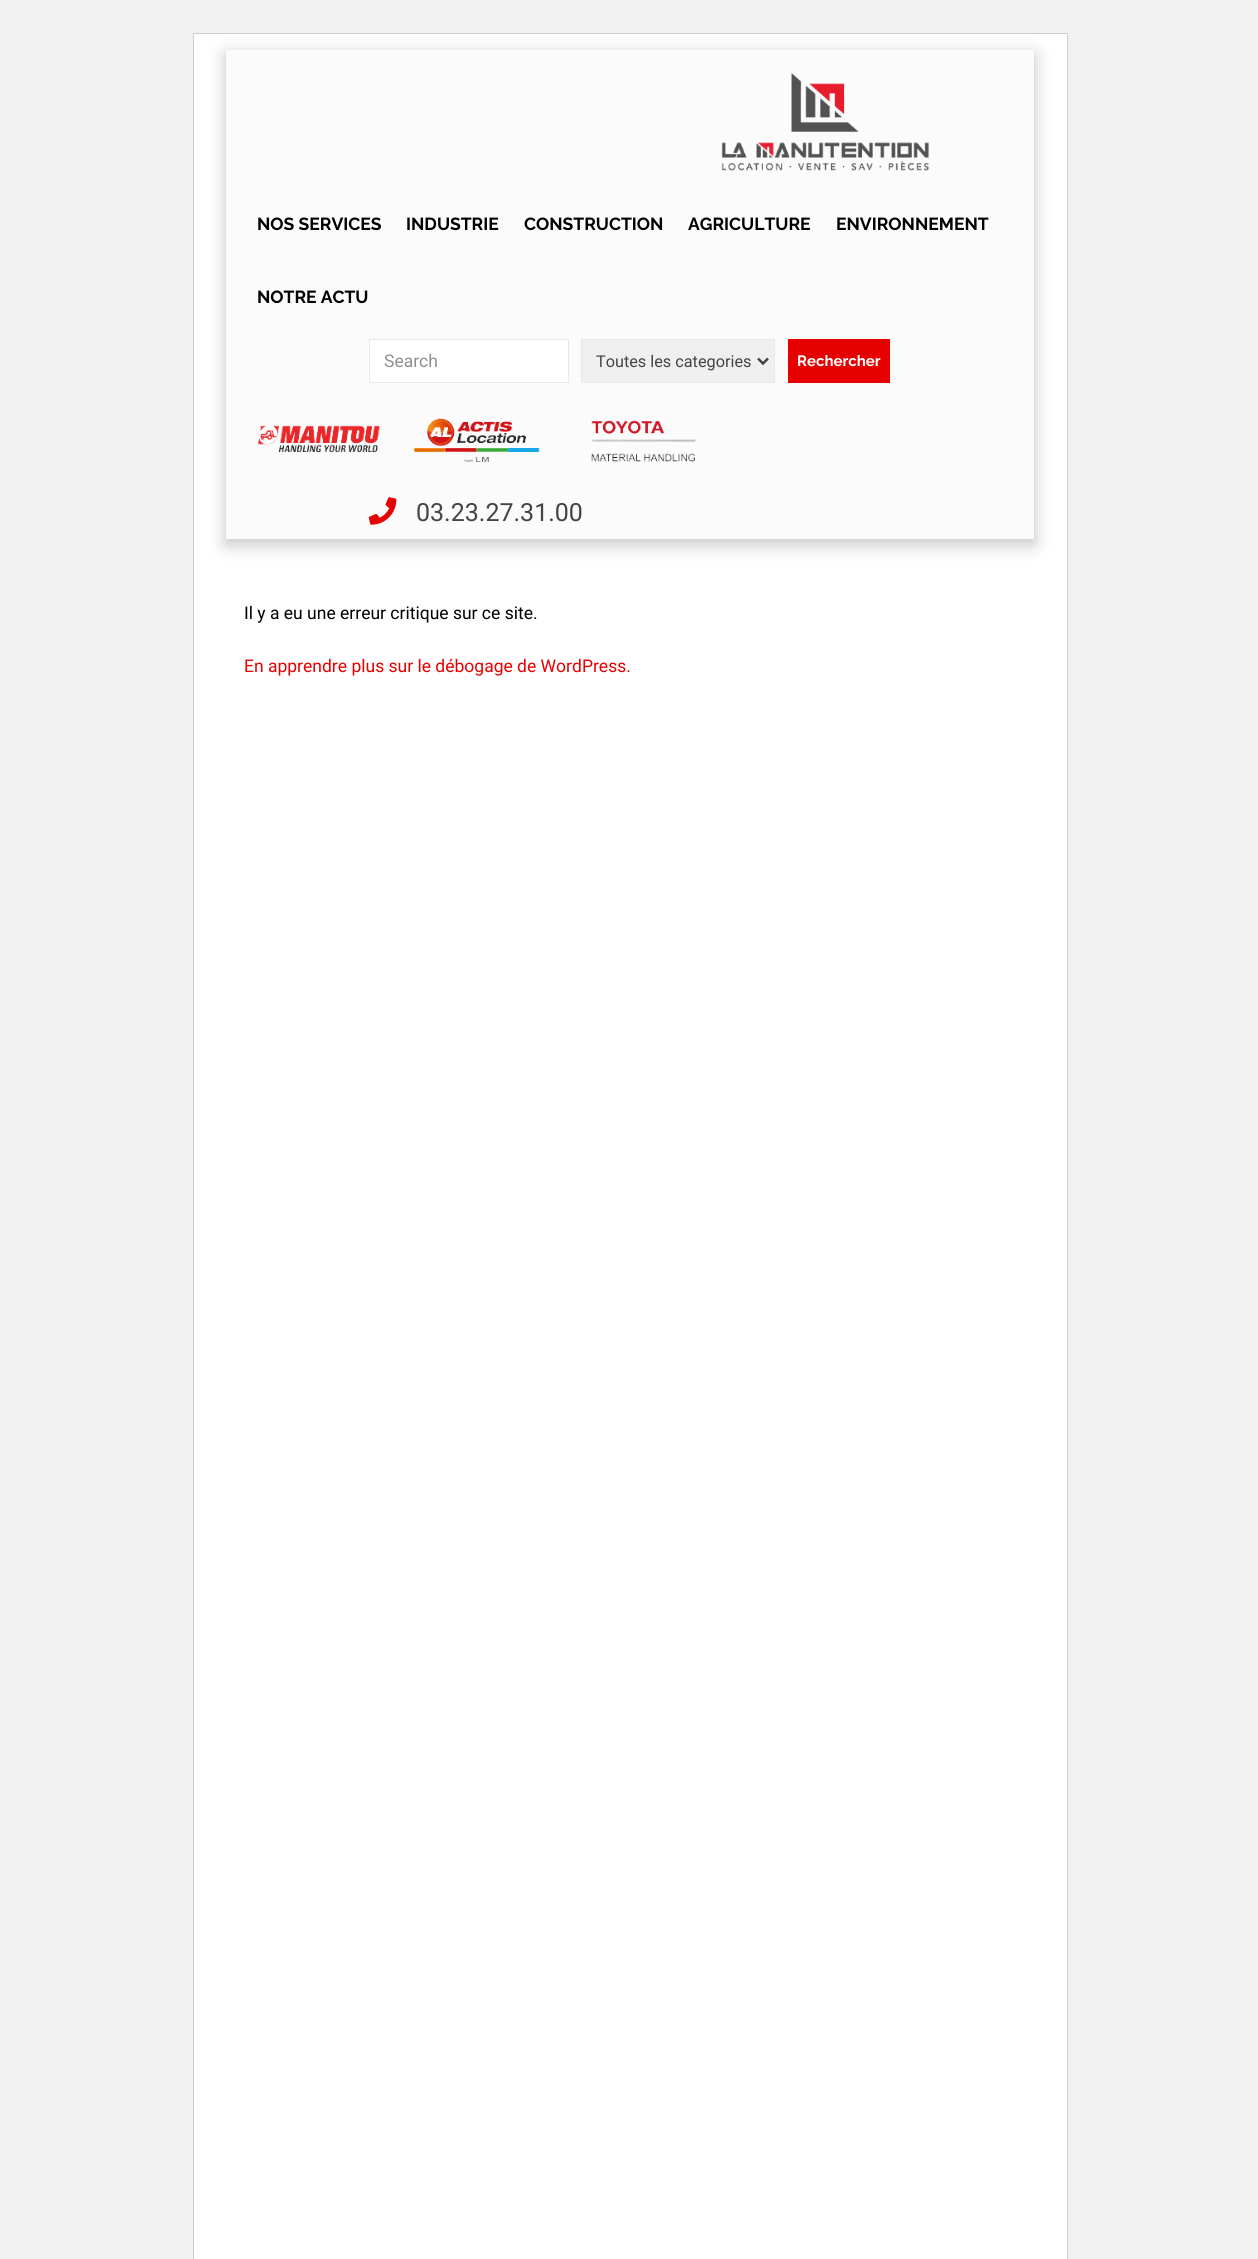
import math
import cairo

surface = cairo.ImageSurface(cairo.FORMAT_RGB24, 1258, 2259)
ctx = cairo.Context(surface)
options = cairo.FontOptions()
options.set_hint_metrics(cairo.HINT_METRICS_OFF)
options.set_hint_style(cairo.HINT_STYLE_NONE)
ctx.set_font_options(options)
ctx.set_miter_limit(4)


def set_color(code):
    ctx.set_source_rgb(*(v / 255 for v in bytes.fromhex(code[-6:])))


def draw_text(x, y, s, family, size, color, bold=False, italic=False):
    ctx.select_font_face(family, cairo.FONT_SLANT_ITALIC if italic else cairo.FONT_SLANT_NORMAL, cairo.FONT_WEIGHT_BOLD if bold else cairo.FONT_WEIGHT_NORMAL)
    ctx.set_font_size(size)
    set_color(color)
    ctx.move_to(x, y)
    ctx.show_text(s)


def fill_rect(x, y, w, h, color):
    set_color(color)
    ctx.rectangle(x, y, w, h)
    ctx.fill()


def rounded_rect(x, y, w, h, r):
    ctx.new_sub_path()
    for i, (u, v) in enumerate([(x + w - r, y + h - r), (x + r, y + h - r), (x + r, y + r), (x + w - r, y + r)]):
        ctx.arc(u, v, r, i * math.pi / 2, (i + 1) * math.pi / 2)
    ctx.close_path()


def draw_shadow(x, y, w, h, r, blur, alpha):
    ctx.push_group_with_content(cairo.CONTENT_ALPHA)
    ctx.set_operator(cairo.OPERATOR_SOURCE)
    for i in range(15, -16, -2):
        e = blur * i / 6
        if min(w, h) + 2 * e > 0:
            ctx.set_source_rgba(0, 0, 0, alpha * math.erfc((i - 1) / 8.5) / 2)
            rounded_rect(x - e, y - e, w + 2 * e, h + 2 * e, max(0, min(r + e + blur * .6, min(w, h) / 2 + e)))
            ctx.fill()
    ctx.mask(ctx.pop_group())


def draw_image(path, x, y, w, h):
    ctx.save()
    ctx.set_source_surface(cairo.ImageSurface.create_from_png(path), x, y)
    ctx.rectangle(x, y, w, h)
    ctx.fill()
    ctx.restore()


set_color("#f1f1f1")
ctx.paint()
set_color("#ffffff")
ctx.rectangle(193.5, 33.5, 874, 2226)
ctx.fill_preserve()
set_color("#ccd0d4")
ctx.set_line_width(1)
ctx.stroke()
set_color("#323232")
draw_shadow(226, 55, 808, 489, 0, 9, 0.3)
fill_rect(226, 50, 808, 489, "#fbfbfb")
draw_image("assets/img1.png", 721, 73, 209, 98)
draw_text(257, 230, "NOS SERVICES", "Raleway", 17.5, "#000000", bold=True)
draw_text(406, 230, "INDUSTRIE", "Raleway", 17.5, "#000000", bold=True)
draw_text(524, 230, "CONSTRUCTION", "Raleway", 17.5, "#000000", bold=True)
draw_text(688, 230, "AGRICULTURE", "Raleway", 17.5, "#000000", bold=True)
draw_text(836, 230, "ENVIRONNEMENT", "Raleway", 17.5, "#000000", bold=True)
draw_text(257, 303, "NOTRE ACTU", "Raleway", 17.5, "#000000", bold=True)
set_color("#ffffff")
ctx.rectangle(369.5, 339.5, 199, 43)
ctx.fill_preserve()
set_color("#e9e9e9")
ctx.stroke()
draw_text(384, 367, "Search", "Roboto", 17.5, "#8f8f8f")
set_color("#efefef")
ctx.rectangle(581.5, 339.5, 193, 43)
ctx.fill_preserve()
set_color("#e9e9e9")
ctx.stroke()
ctx.new_path()
ctx.move_to(758, 358.5)
ctx.line_to(763, 363.5)
ctx.line_to(768, 358.5)
set_color("#444444")
ctx.set_line_width(2.5)
ctx.stroke()
draw_text(596, 367, "Toutes les categories", "Roboto", 16.25, "#444444")
fill_rect(788, 339, 102, 44, "#e60000")
draw_text(797, 366, "Rechercher", "Raleway", 15, "#ffffff", bold=True)
draw_image("assets/img2.png", 258, 418, 438, 44)
draw_image("assets/img3.png", 368, 497, 29, 28)
draw_text(416, 521, "03.23.27.31.00", "Roboto", 25, "#444444")
draw_text(244, 619, "Il y a eu une erreur critique sur ce site.", "Roboto", 17.5, "#000000")
draw_text(244, 672, "En apprendre plus sur le débogage de WordPress.", "Roboto", 17.5, "#e60000")
surface.write_to_png("output.png")
